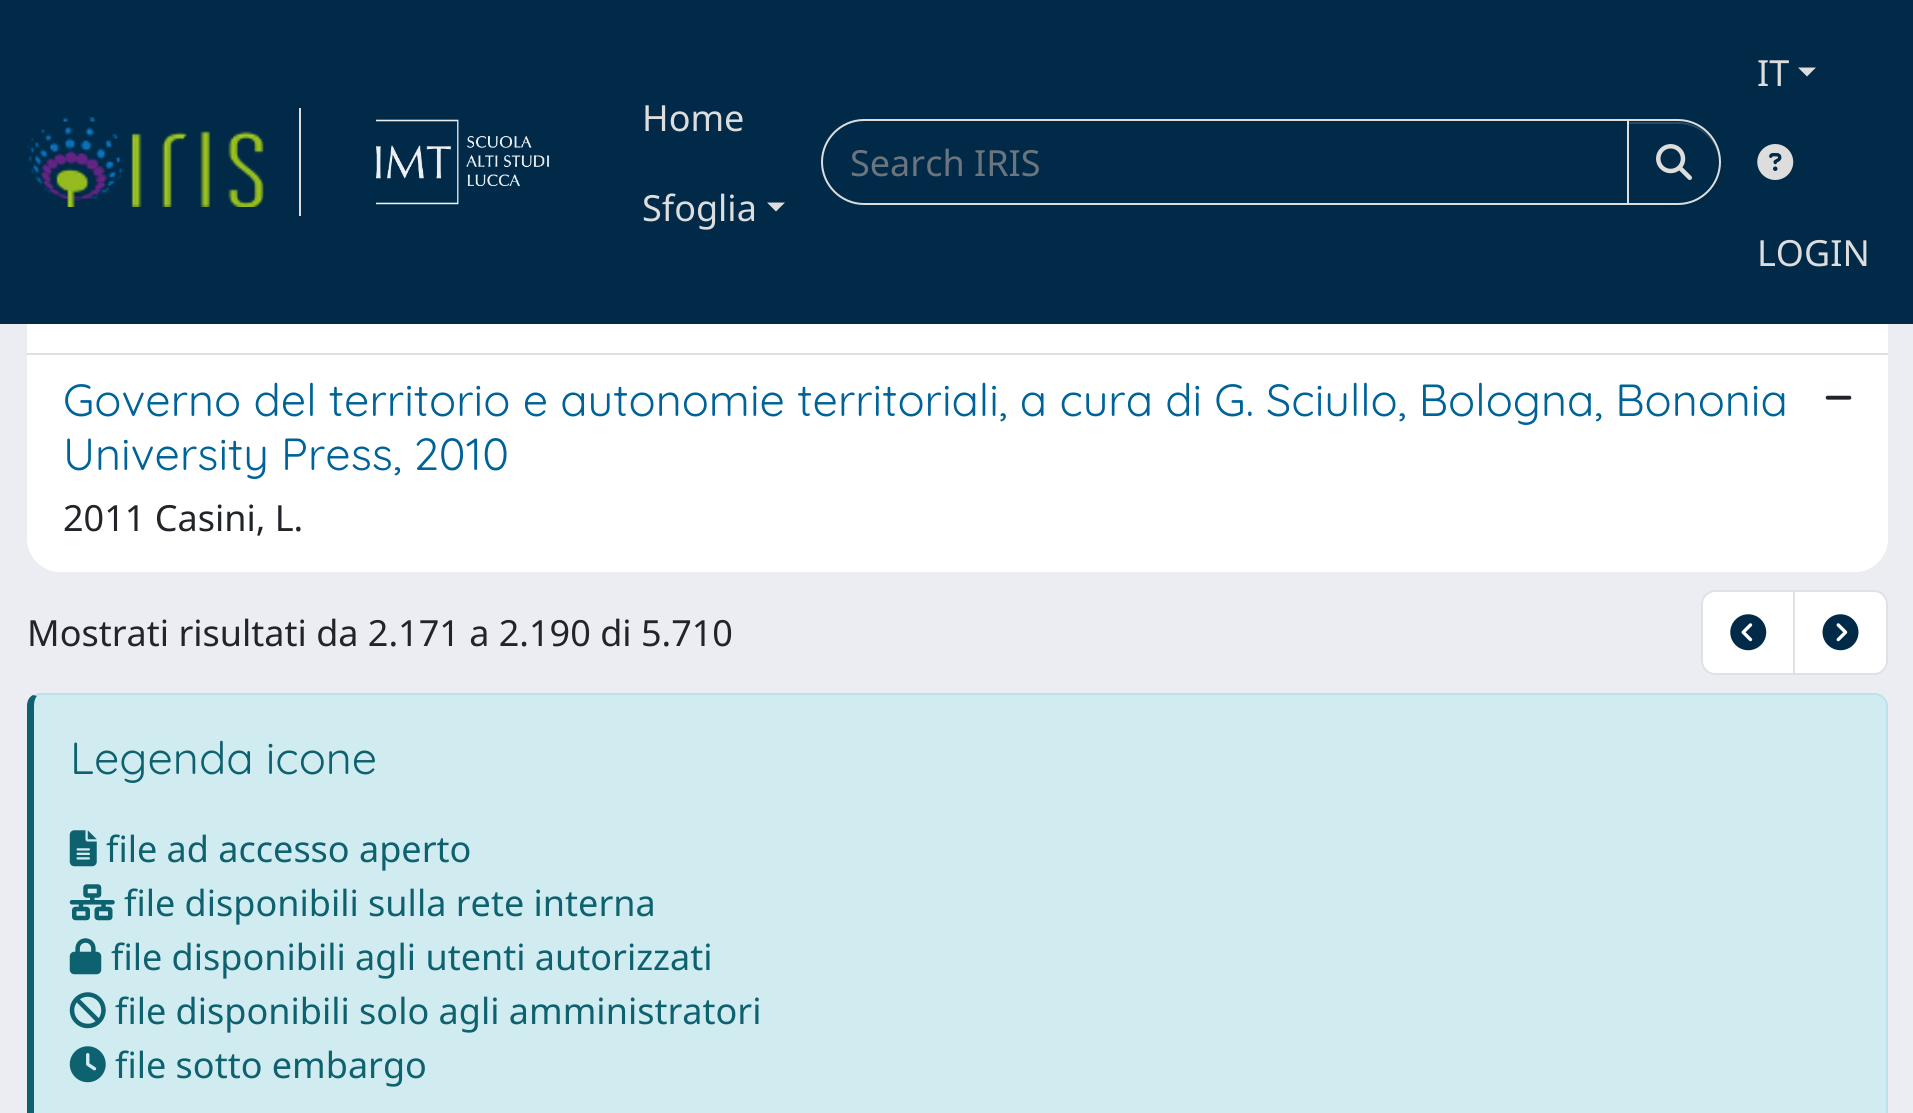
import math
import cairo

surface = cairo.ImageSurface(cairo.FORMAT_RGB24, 1913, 1113)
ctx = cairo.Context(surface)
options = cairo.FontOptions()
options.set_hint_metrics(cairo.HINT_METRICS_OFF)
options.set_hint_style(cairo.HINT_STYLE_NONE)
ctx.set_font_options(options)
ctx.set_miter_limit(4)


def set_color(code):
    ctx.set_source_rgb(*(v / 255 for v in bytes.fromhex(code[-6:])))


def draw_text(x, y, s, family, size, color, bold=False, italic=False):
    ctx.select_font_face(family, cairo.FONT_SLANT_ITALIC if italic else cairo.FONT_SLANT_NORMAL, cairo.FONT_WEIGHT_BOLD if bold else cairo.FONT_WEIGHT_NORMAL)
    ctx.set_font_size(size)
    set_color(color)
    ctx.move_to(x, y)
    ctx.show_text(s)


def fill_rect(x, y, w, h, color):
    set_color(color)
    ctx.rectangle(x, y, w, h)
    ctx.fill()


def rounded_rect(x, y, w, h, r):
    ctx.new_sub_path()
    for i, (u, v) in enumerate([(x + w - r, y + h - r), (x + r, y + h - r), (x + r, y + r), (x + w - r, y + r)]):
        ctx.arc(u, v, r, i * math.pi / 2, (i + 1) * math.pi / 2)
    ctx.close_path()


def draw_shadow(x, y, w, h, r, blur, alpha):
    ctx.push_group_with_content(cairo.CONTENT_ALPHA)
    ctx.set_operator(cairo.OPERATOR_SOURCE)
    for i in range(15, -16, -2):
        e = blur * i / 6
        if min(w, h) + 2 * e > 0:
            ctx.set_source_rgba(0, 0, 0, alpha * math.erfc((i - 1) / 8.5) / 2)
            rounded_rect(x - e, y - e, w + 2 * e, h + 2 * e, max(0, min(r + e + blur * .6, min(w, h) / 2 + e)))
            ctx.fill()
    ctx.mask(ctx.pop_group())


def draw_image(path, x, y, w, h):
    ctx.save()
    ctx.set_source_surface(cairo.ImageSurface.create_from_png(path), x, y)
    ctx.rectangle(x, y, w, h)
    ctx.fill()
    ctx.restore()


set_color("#ecedf2")
ctx.paint()
set_color("#ffffff")
rounded_rect(27, -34, 1861, 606, 34)
ctx.fill()
fill_rect(0, 0, 1913, 324, "#002a48")
fill_rect(299, 108, 2, 108, "#dddddd")
draw_image("assets/img1.png", 27, 117, 237, 90)
draw_image("assets/img2.png", 376, 119, 174, 86)
draw_text(642, 131, "Home", "Noto Sans", 36, "#dddddd")
draw_text(642, 221, "Sfoglia", "Noto Sans", 36, "#dddddd")
ctx.new_path()
ctx.move_to(767, 202.5)
ctx.line_to(785, 202.5)
ctx.line_to(776, 211.5)
ctx.close_path()
ctx.fill()
ctx.new_path()
ctx.move_to(864, 120)
ctx.line_to(1628, 120)
ctx.line_to(1628, 204)
ctx.line_to(864, 204)
ctx.curve_to(841, 204, 822, 185, 822, 162)
ctx.curve_to(822, 139, 841, 120, 864, 120)
ctx.close_path()
ctx.stroke()
draw_text(850, 176, "Search IRIS", "Noto Sans", 36, "#6c757d")
set_color("#000000")
draw_shadow(1627, 122, 94, 85, 42.5, 1, 0.07)
set_color("#002a48")
ctx.new_path()
ctx.move_to(1627, 119)
ctx.line_to(1678, 119)
ctx.curve_to(1701.5, 119, 1721, 138.5, 1721, 162)
ctx.curve_to(1721, 185.5, 1701.5, 205, 1678, 205)
ctx.line_to(1627, 205)
ctx.close_path()
ctx.fill()
set_color("#264a63")
ctx.new_path()
ctx.move_to(1629, 124)
ctx.line_to(1678, 124)
ctx.curve_to(1701, 124, 1719, 142, 1719, 163)
ctx.line_to(1719, 162)
ctx.curve_to(1719, 140, 1701, 122, 1678, 122)
ctx.line_to(1629, 122)
ctx.close_path()
ctx.fill()
ctx.new_path()
ctx.move_to(1628, 120)
ctx.line_to(1678, 120)
ctx.curve_to(1701, 120, 1720, 139, 1720, 162)
ctx.curve_to(1720, 185, 1701, 204, 1678, 204)
ctx.line_to(1628, 204)
ctx.close_path()
set_color("#dddddd")
ctx.stroke()
draw_image("assets/img3.png", 1656, 144, 36, 36)
draw_text(1757, 86, "IT", "Noto Sans", 36, "#dddddd")
ctx.new_path()
ctx.move_to(1798, 67.5)
ctx.line_to(1816, 67.5)
ctx.line_to(1807, 76.5)
ctx.close_path()
ctx.fill()
draw_image("assets/img4.png", 1757, 144, 37, 36)
draw_text(1757, 266, "LOGIN", "Noto Sans", 36, "#dddddd")
fill_rect(27, 353, 1861, 2, "#dfdfdf")
set_color("#ffffff")
ctx.new_path()
ctx.move_to(27, 356)
ctx.line_to(1888, 356)
ctx.line_to(1888, 538)
ctx.curve_to(1888, 557, 1873, 572, 1854, 572)
ctx.line_to(61, 572)
ctx.curve_to(42, 572, 27, 557, 27, 538)
ctx.close_path()
ctx.fill()
draw_text(63, 416, "Governo del territorio e autonomie territoriali, a cura di G. Sciullo, Bologna, Bononia", "Quicksand Light", 45, "#006398")
draw_text(63, 470, "University Press, 2010", "Quicksand Light", 45, "#006398")
draw_image("assets/img5.png", 1825, 395, 27, 5)
draw_text(63, 531, "2011 Casini, L.", "Noto Sans", 36, "#212529")
draw_text(27, 646, "Mostrati risultati da 2.171 a 2.190 di 5.710", "Noto Sans", 36, "#212529")
set_color("#ffffff")
ctx.new_path()
ctx.move_to(1715, 591)
ctx.line_to(1795, 591)
ctx.line_to(1795, 674)
ctx.line_to(1715, 674)
ctx.curve_to(1708, 674, 1702, 668, 1702, 661)
ctx.line_to(1702, 604)
ctx.curve_to(1702, 597, 1708, 591, 1715, 591)
ctx.close_path()
ctx.fill_preserve()
set_color("#dee2e6")
ctx.stroke()
draw_image("assets/img6.png", 1730, 614, 37, 37)
set_color("#ffffff")
ctx.new_path()
ctx.move_to(1794, 591)
ctx.line_to(1874, 591)
ctx.curve_to(1881, 591, 1887, 597, 1887, 604)
ctx.line_to(1887, 661)
ctx.curve_to(1887, 668, 1881, 674, 1874, 674)
ctx.line_to(1794, 674)
ctx.close_path()
ctx.fill_preserve()
set_color("#dee2e6")
ctx.stroke()
draw_image("assets/img7.png", 1822, 614, 37, 37)
set_color("#d1ecf1")
ctx.new_path()
ctx.move_to(40, 695)
ctx.line_to(1874, 695)
ctx.curve_to(1880, 695, 1886, 700, 1886, 706)
ctx.line_to(1886, 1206)
ctx.curve_to(1886, 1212, 1880, 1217, 1874, 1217)
ctx.line_to(40, 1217)
ctx.curve_to(37, 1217, 34, 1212, 34, 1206)
ctx.line_to(34, 706)
ctx.curve_to(34, 700, 37, 695, 40, 695)
ctx.close_path()
ctx.fill()
set_color("#b9e3ea")
ctx.new_path()
ctx.move_to(40, 693)
ctx.curve_to(38, 693, 35, 694, 33, 695)
ctx.line_to(37, 696)
ctx.curve_to(38, 696, 39, 695, 40, 695)
ctx.line_to(1874, 695)
ctx.curve_to(1877, 695, 1880, 696, 1882, 698)
ctx.line_to(1884, 697)
ctx.curve_to(1881, 694, 1878, 693, 1874, 693)
ctx.close_path()
ctx.fill()
ctx.new_path()
ctx.move_to(1888, 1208)
ctx.curve_to(1887, 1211, 1886, 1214, 1884, 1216)
ctx.line_to(1882, 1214)
ctx.curve_to(1884, 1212, 1886, 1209, 1886, 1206)
ctx.line_to(1886, 706)
ctx.curve_to(1886, 703, 1885, 700, 1882, 698)
ctx.line_to(1884, 697)
ctx.curve_to(1886, 699, 1887, 701, 1888, 704)
ctx.close_path()
ctx.fill()
set_color("#0e616e")
ctx.new_path()
ctx.move_to(27, 706)
ctx.line_to(27, 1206)
ctx.curve_to(27, 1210, 29, 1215, 33, 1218)
ctx.line_to(38, 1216)
ctx.curve_to(36, 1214, 34, 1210, 34, 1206)
ctx.line_to(34, 706)
ctx.curve_to(34, 702, 35, 698, 37, 696)
ctx.line_to(33, 695)
ctx.curve_to(29, 697, 27, 701, 27, 706)
ctx.close_path()
ctx.fill()
draw_text(70, 774, "Legenda icone", "Quicksand Light", 45, "#0e616e")
draw_image("assets/img8.png", 69, 830, 28, 37)
draw_text(106, 862, "file ad accesso aperto", "Noto Sans", 36, "#0e616e")
draw_image("assets/img9.png", 69, 884, 46, 37)
draw_text(124, 916, "file disponibili sulla rete interna", "Noto Sans", 36, "#0e616e")
draw_image("assets/img10.png", 69, 938, 33, 37)
draw_text(111, 970, "file disponibili agli utenti autorizzati", "Noto Sans", 36, "#0e616e")
draw_image("assets/img11.png", 69, 992, 37, 37)
draw_text(115, 1024, "file disponibili solo agli amministratori", "Noto Sans", 36, "#0e616e")
draw_image("assets/img12.png", 69, 1046, 37, 37)
draw_text(115, 1078, "file sotto embargo", "Noto Sans", 36, "#0e616e")
surface.write_to_png("output.png")
